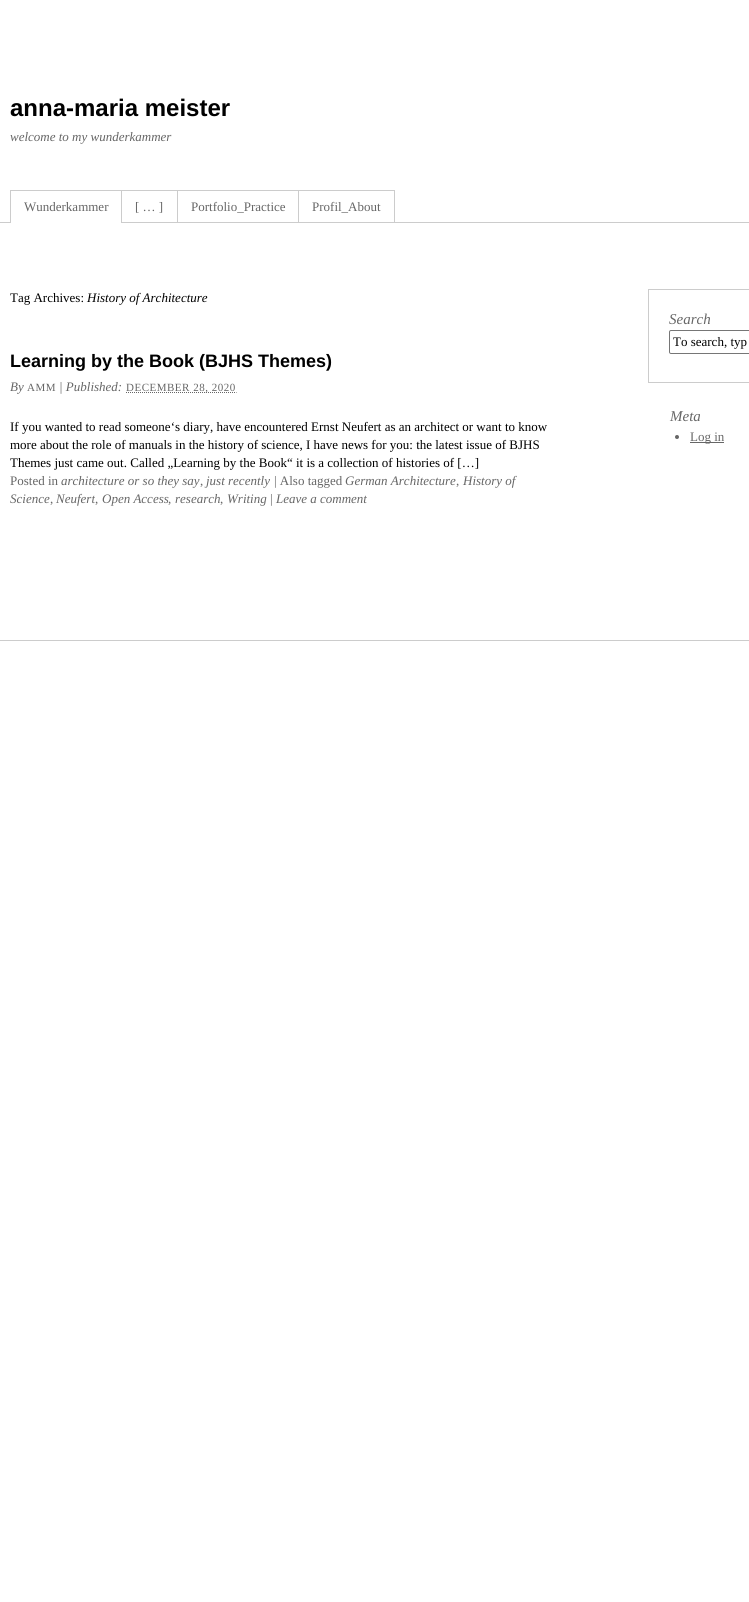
import math
import cairo

surface = cairo.ImageSurface(cairo.FORMAT_RGB24, 749, 1602)
ctx = cairo.Context(surface)
options = cairo.FontOptions()
options.set_hint_metrics(cairo.HINT_METRICS_OFF)
options.set_hint_style(cairo.HINT_STYLE_NONE)
ctx.set_font_options(options)
ctx.set_miter_limit(4)


def set_color(code):
    ctx.set_source_rgb(*(v / 255 for v in bytes.fromhex(code[-6:])))


def draw_text(x, y, s, family, size, color, bold=False, italic=False):
    ctx.select_font_face(family, cairo.FONT_SLANT_ITALIC if italic else cairo.FONT_SLANT_NORMAL, cairo.FONT_WEIGHT_BOLD if bold else cairo.FONT_WEIGHT_NORMAL)
    ctx.set_font_size(size)
    set_color(color)
    ctx.move_to(x, y)
    ctx.show_text(s)


def draw_spaced(x, y, s, letter, word):
    ctx.move_to(x, y)
    for ch in s:
        ctx.show_text(ch)
        ctx.rel_move_to(letter + word * (ch == ' '), 0)


def fill_rect(x, y, w, h, color):
    set_color(color)
    ctx.rectangle(x, y, w, h)
    ctx.fill()


def rounded_rect(x, y, w, h, r):
    ctx.new_sub_path()
    for i, (u, v) in enumerate([(x + w - r, y + h - r), (x + r, y + h - r), (x + r, y + r), (x + w - r, y + r)]):
        ctx.arc(u, v, r, i * math.pi / 2, (i + 1) * math.pi / 2)
    ctx.close_path()


set_color("#ffffff")
ctx.paint()
draw_text(10, 116, "anna-maria meister", "Liberation Sans", 24, "#000000", bold=True)
draw_text(10, 141, "welcome to my wunderkammer", "Liberation Serif", 13, "#666666", italic=True)
fill_rect(0, 222, 749, 1, "#cccccc")
fill_rect(394, 190, 1, 33, "#cccccc")
fill_rect(11, 222, 110, 1, "#ffffff")
fill_rect(10, 190, 384, 1, "#cccccc")
fill_rect(10, 190, 1, 33, "#cccccc")
draw_text(24, 211, "Wunderkammer", "Liberation Serif", 13, "#666666")
fill_rect(121, 190, 1, 33, "#cccccc")
draw_text(135, 211, "[ … ]", "Liberation Serif", 13, "#666666")
fill_rect(177, 190, 1, 33, "#cccccc")
draw_text(191, 211, "Portfolio_Practice", "Liberation Serif", 13, "#666666")
fill_rect(298, 190, 1, 33, "#cccccc")
draw_text(312, 211, "Profil_About", "Liberation Serif", 13, "#666666")
draw_text(10, 302, "Tag Archives:", "Liberation Serif", 13, "#000000")
draw_text(87, 302, "History of Architecture", "Liberation Serif", 13, "#000000", italic=True)
draw_text(10, 367, "Learning by the Book (BJHS Themes)", "Liberation Sans", 18, "#000000", bold=True)
draw_text(10, 391, "By", "Liberation Serif", 13, "#666666", italic=True)
ctx.select_font_face("Liberation Serif")
ctx.set_font_size(11)
draw_spaced(27, 391, "AMM", 0.5, 0)
draw_text(59, 391, "| Published:", "Liberation Serif", 13, "#666666", italic=True)
ctx.new_path()
ctx.move_to(126, 392.5)
ctx.line_to(236.5, 392.5)
ctx.set_line_width(1)
ctx.set_dash([1, 1])
ctx.stroke()
ctx.select_font_face("Liberation Serif")
ctx.set_font_size(11)
draw_spaced(126, 391, "DECEMBER 28, 2020", 0.5, 0)
draw_text(10, 431, "If you wanted to read someone‘s diary, have encountered Ernst Neufert as an architect or want to know", "Liberation Serif", 13, "#000000")
draw_text(10, 449, "more about the role of manuals in the history of science, I have news for you: the latest issue of BJHS", "Liberation Serif", 13, "#000000")
draw_text(10, 467, "Themes just came out. Called „Learning by the Book“ it is a collection of histories of […]", "Liberation Serif", 13, "#000000")
draw_text(10, 485, "Posted in", "Liberation Serif", 13, "#666666")
draw_text(61, 485, "architecture or so they say", "Liberation Serif", 13, "#666666", italic=True)
draw_text(200, 485, ",", "Liberation Serif", 13, "#666666")
draw_text(206, 485, "just recently", "Liberation Serif", 13, "#666666", italic=True)
draw_text(274, 485, "| Also tagged", "Liberation Serif", 13, "#666666")
draw_text(345, 485, "German Architecture", "Liberation Serif", 13, "#666666", italic=True)
draw_text(456, 485, ",", "Liberation Serif", 13, "#666666")
draw_text(463, 485, "History of", "Liberation Serif", 13, "#666666", italic=True)
draw_text(10, 503, "Science", "Liberation Serif", 13, "#666666", italic=True)
draw_text(50, 503, ",", "Liberation Serif", 13, "#666666")
draw_text(56, 503, "Neufert", "Liberation Serif", 13, "#666666", italic=True)
draw_text(95, 503, ",", "Liberation Serif", 13, "#666666")
draw_text(102, 503, "Open Access", "Liberation Serif", 13, "#666666", italic=True)
draw_text(168, 503, ",", "Liberation Serif", 13, "#666666")
draw_text(175, 503, "research", "Liberation Serif", 13, "#666666", italic=True)
draw_text(220, 503, ",", "Liberation Serif", 13, "#666666")
draw_text(227, 503, "Writing", "Liberation Serif", 13, "#666666", italic=True)
draw_text(270, 503, "|", "Liberation Serif", 13, "#666666")
draw_text(276, 503, "Leave a comment", "Liberation Serif", 13, "#666666", italic=True)
ctx.rectangle(648.5, 289.5, 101, 93)
set_color("#cccccc")
ctx.set_dash([])
ctx.stroke()
draw_text(669, 324, "Search", "Liberation Serif", 15, "#666666", italic=True)
rounded_rect(669.5, 330.5, 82, 23, 1.5)
set_color("#767676")
ctx.stroke()
draw_text(673, 346, "To search, typ", "Liberation Serif", 13, "#000000")
draw_text(670, 421, "Meta", "Liberation Serif", 15, "#666666", italic=True)
ctx.new_path()
ctx.arc(677, 437, 2, 0, 2 * math.pi)
ctx.fill()
fill_rect(690, 442, 34, 1, "#666666")
draw_text(690, 441, "Log in", "Liberation Serif", 13, "#666666")
fill_rect(0, 640, 749, 1, "#cccccc")
surface.write_to_png("output.png")
